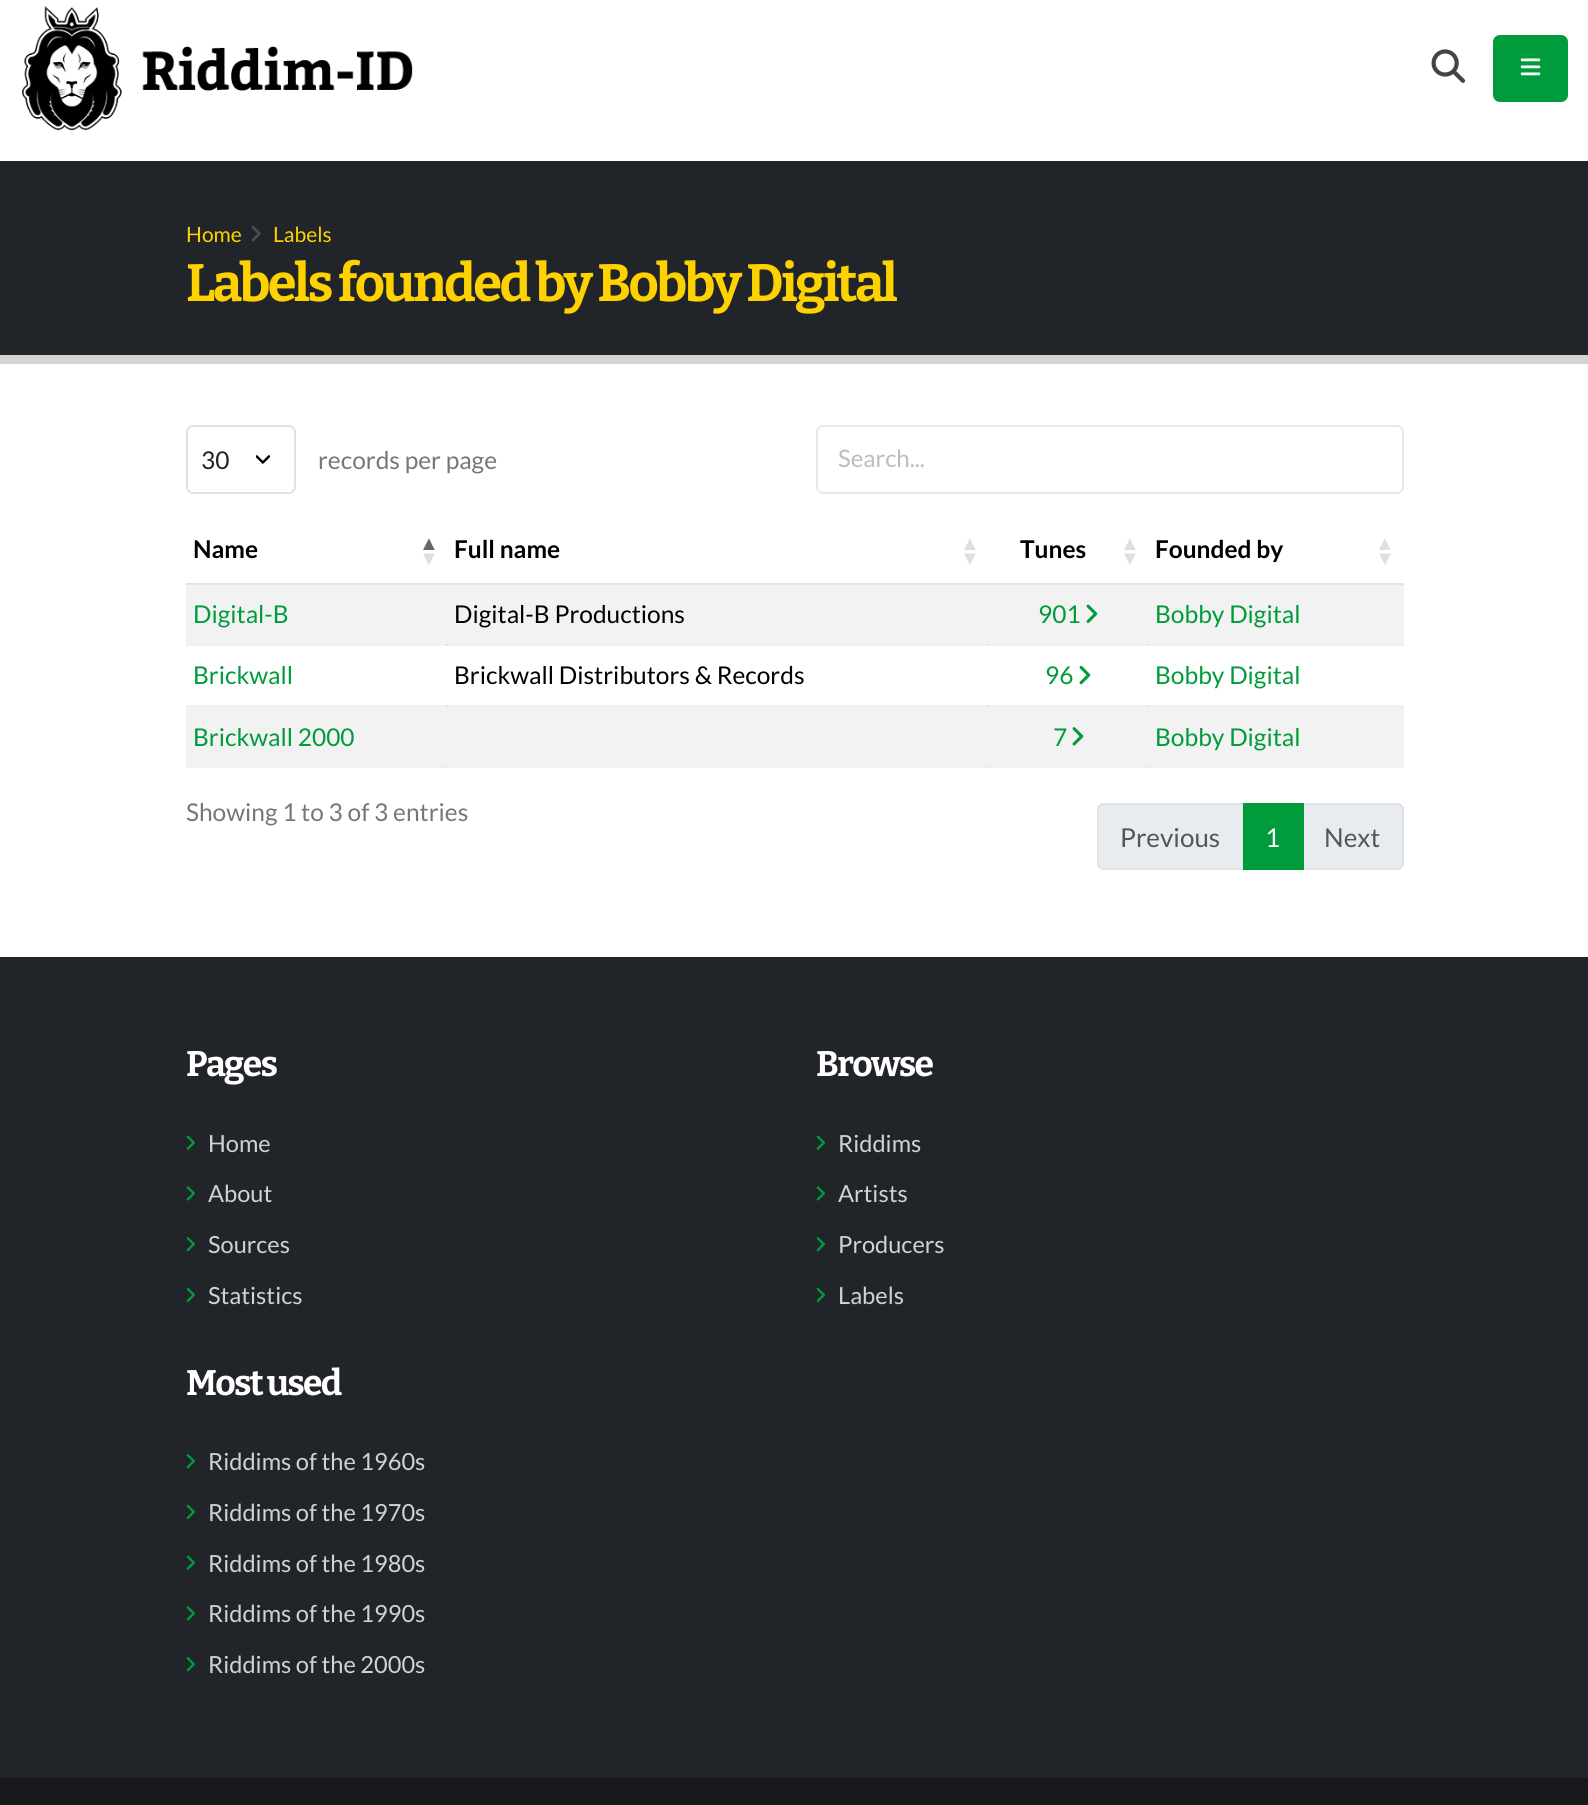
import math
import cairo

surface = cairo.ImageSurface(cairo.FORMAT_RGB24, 1588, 1805)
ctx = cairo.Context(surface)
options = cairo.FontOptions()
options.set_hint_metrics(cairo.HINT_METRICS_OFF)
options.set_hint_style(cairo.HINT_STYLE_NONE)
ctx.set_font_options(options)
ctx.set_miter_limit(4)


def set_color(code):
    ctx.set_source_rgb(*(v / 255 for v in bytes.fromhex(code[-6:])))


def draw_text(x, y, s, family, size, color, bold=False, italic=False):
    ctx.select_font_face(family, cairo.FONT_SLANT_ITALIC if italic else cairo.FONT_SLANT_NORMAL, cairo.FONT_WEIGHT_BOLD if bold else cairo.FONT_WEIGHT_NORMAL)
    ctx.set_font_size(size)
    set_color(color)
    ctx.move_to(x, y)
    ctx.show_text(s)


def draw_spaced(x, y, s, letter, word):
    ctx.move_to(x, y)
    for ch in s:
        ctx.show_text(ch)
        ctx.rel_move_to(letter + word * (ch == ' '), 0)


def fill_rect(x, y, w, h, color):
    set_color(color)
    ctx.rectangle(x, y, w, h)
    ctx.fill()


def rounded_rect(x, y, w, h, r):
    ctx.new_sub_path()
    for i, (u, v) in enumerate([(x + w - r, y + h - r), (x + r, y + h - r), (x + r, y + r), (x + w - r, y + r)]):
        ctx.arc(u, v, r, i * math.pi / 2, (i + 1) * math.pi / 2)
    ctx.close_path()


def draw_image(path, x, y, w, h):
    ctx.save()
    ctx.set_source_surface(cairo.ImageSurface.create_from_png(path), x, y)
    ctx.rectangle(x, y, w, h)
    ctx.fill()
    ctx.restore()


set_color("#ffffff")
ctx.paint()
fill_rect(186, 644, 1218, 2, "#f0f0f0")
fill_rect(446, 644, 2, 2, "#e2e2e2")
fill_rect(987, 644, 2, 2, "#e2e2e2")
fill_rect(186, 705, 1218, 2, "#f0f0f0")
fill_rect(446, 705, 2, 2, "#e2e2e2")
fill_rect(987, 705, 2, 2, "#e2e2e2")
fill_rect(186, 767, 1218, 1, "#f0f0f0")
fill_rect(446, 767, 2, 1, "#e2e2e2")
fill_rect(987, 767, 2, 1, "#e2e2e2")
draw_image("assets/img1.png", 21, 6, 392, 125)
draw_image("assets/img2.png", 1431, 49, 35, 34)
set_color("#009b3a")
rounded_rect(1493, 35, 75, 67, 7)
ctx.fill()
draw_image("assets/img3.png", 1520, 58, 21, 18)
fill_rect(0, 161, 1588, 194, "#212529")
draw_text(186, 242, "Home", "Lato", 21, "#fed100")
draw_image("assets/img4.png", 251, 225, 10, 17)
draw_text(273, 242, "Labels", "Lato", 21, "#fed100")
ctx.select_font_face("Bitter Thin")
ctx.set_font_size(52.5)
draw_spaced(186, 301, "Labels founded by Bobby Digital", -2.6, 0)
fill_rect(0, 355, 1588, 9, "#d3d3d4")
draw_image("assets/img5.png", 256, 455, 14, 9)
rounded_rect(187, 426, 108, 67, 6)
set_color("#dee2e6")
ctx.stroke()
draw_text(201, 469, "30", "Lato", 24.5, "#212529")
draw_text(318, 469, "records per page", "Lato", 24.5, "#777777")
rounded_rect(817, 426, 586, 67, 6)
set_color("#e8e8e8")
ctx.stroke()
draw_text(838, 467, "Search...", "Lato", 24, "#bdbdbd")
draw_text(193, 558, "Name", "Lato", 24.5, "#000000", bold=True)
draw_text(419, 550, "▲", "Liberation Sans", 20, "#666666", bold=True)
draw_text(419, 565, "▼", "Liberation Sans", 20, "#dfdfdf", bold=True)
draw_text(454, 558, "Full name", "Lato", 24.5, "#000000", bold=True)
draw_text(960, 550, "▲", "Liberation Sans", 20, "#dfdfdf", bold=True)
draw_text(960, 565, "▼", "Liberation Sans", 20, "#dfdfdf", bold=True)
draw_text(1020, 558, "Tunes", "Lato", 24.5, "#000000", bold=True)
draw_text(1120, 550, "▲", "Liberation Sans", 20, "#dfdfdf", bold=True)
draw_text(1120, 565, "▼", "Liberation Sans", 20, "#dfdfdf", bold=True)
draw_text(1155, 558, "Founded by", "Lato", 24.5, "#000000", bold=True)
draw_text(1375, 550, "▲", "Liberation Sans", 20, "#dfdfdf", bold=True)
draw_text(1375, 565, "▼", "Liberation Sans", 20, "#dfdfdf", bold=True)
fill_rect(186, 585, 1218, 59, "#f2f2f2")
fill_rect(186, 583, 1218, 2, "#e3e3e3")
draw_text(193, 623, "Digital-B", "Lato", 24.5, "#009b3a")
draw_text(454, 623, "Digital-B Productions", "Lato", 24.5, "#000000")
draw_text(1038, 623, "901", "Lato", 24.5, "#009b3a")
draw_image("assets/img6.png", 1086, 604, 12, 19)
fill_rect(1148, 644, 2, 2, "#e2e2e2")
draw_text(1155, 623, "Bobby Digital", "Lato", 24.5, "#009b3a")
draw_text(193, 684, "Brickwall", "Lato", 24.5, "#009b3a")
draw_text(454, 684, "Brickwall Distributors & Records", "Lato", 24.5, "#000000")
draw_text(1045, 684, "96", "Lato", 24.5, "#009b3a")
draw_image("assets/img7.png", 1079, 665, 12, 20)
fill_rect(1148, 705, 2, 2, "#e2e2e2")
draw_text(1155, 684, "Bobby Digital", "Lato", 24.5, "#009b3a")
fill_rect(186, 707, 1218, 60, "#f2f2f2")
draw_text(193, 746, "Brickwall 2000", "Lato", 24.5, "#009b3a")
draw_text(1053, 746, "7", "Lato", 24.5, "#009b3a")
draw_image("assets/img8.png", 1072, 727, 12, 19)
fill_rect(1148, 767, 2, 1, "#e2e2e2")
draw_text(1155, 746, "Bobby Digital", "Lato", 24.5, "#009b3a")
draw_text(186, 821, "Showing 1 to 3 of 3 entries", "Lato", 24.5, "#777777")
set_color("#e9ecef")
ctx.new_path()
ctx.move_to(1104, 804)
ctx.line_to(1243, 804)
ctx.line_to(1243, 869)
ctx.line_to(1104, 869)
ctx.curve_to(1100.5, 869, 1098, 866.5, 1098, 863)
ctx.line_to(1098, 810)
ctx.curve_to(1098, 806.5, 1100.5, 804, 1104, 804)
ctx.close_path()
ctx.fill_preserve()
set_color("#dee2e6")
ctx.stroke()
draw_text(1120, 847, "Previous", "Lato", 26, "#53575b")
set_color("#e9ecef")
ctx.new_path()
ctx.move_to(1303, 804)
ctx.line_to(1397, 804)
ctx.curve_to(1400.5, 804, 1403, 806.5, 1403, 810)
ctx.line_to(1403, 863)
ctx.curve_to(1403, 866.5, 1400.5, 869, 1397, 869)
ctx.line_to(1303, 869)
ctx.close_path()
ctx.fill_preserve()
set_color("#dee2e6")
ctx.stroke()
fill_rect(1243, 803, 61, 67, "#009b3a")
draw_text(1265, 847, "1", "Lato", 26, "#ffffff")
draw_text(1324, 847, "Next", "Lato", 26, "#53575b")
fill_rect(0, 957, 1588, 821, "#212529")
ctx.select_font_face("Bitter Thin")
ctx.set_font_size(35.5)
set_color("#ffffff")
draw_spaced(186, 1076, "Pages", -1.75, 0)
draw_image("assets/img9.png", 186, 1135, 9, 15)
draw_text(208, 1152, "Home", "Lato", 23.6, "#d2d2d3")
draw_image("assets/img10.png", 186, 1186, 9, 15)
draw_text(208, 1202, "About", "Lato", 23.6, "#d2d2d3")
draw_image("assets/img11.png", 186, 1237, 9, 15)
draw_text(208, 1253, "Sources", "Lato", 23.6, "#d2d2d3")
draw_image("assets/img12.png", 186, 1287, 9, 15)
draw_text(208, 1304, "Statistics", "Lato", 23.6, "#d2d2d3")
ctx.select_font_face("Bitter Thin")
ctx.set_font_size(35.5)
set_color("#ffffff")
draw_spaced(816, 1076, "Browse", -1.75, 0)
draw_image("assets/img9.png", 816, 1135, 9, 15)
draw_text(838, 1152, "Riddims", "Lato", 23.6, "#d2d2d3")
draw_image("assets/img10.png", 816, 1186, 9, 15)
draw_text(838, 1202, "Artists", "Lato", 23.6, "#d2d2d3")
draw_image("assets/img11.png", 816, 1237, 9, 15)
draw_text(838, 1253, "Producers", "Lato", 23.6, "#d2d2d3")
draw_image("assets/img12.png", 816, 1287, 9, 15)
draw_text(838, 1304, "Labels", "Lato", 23.6, "#d2d2d3")
ctx.select_font_face("Bitter Thin")
ctx.set_font_size(35.5)
set_color("#ffffff")
draw_spaced(186, 1395, "Most used", -1.75, 0)
draw_image("assets/img11.png", 186, 1454, 9, 15)
draw_text(208, 1470, "Riddims of the 1960s", "Lato", 23.6, "#d2d2d3")
draw_image("assets/img12.png", 186, 1504, 9, 15)
draw_text(208, 1521, "Riddims of the 1970s", "Lato", 23.6, "#d2d2d3")
draw_image("assets/img9.png", 186, 1555, 9, 15)
draw_text(208, 1572, "Riddims of the 1980s", "Lato", 23.6, "#d2d2d3")
draw_image("assets/img10.png", 186, 1606, 9, 15)
draw_text(208, 1622, "Riddims of the 1990s", "Lato", 23.6, "#d2d2d3")
draw_image("assets/img11.png", 186, 1657, 9, 15)
draw_text(208, 1673, "Riddims of the 2000s", "Lato", 23.6, "#d2d2d3")
fill_rect(0, 1778, 1588, 27, "#16181b")
surface.write_to_png("output.png")
